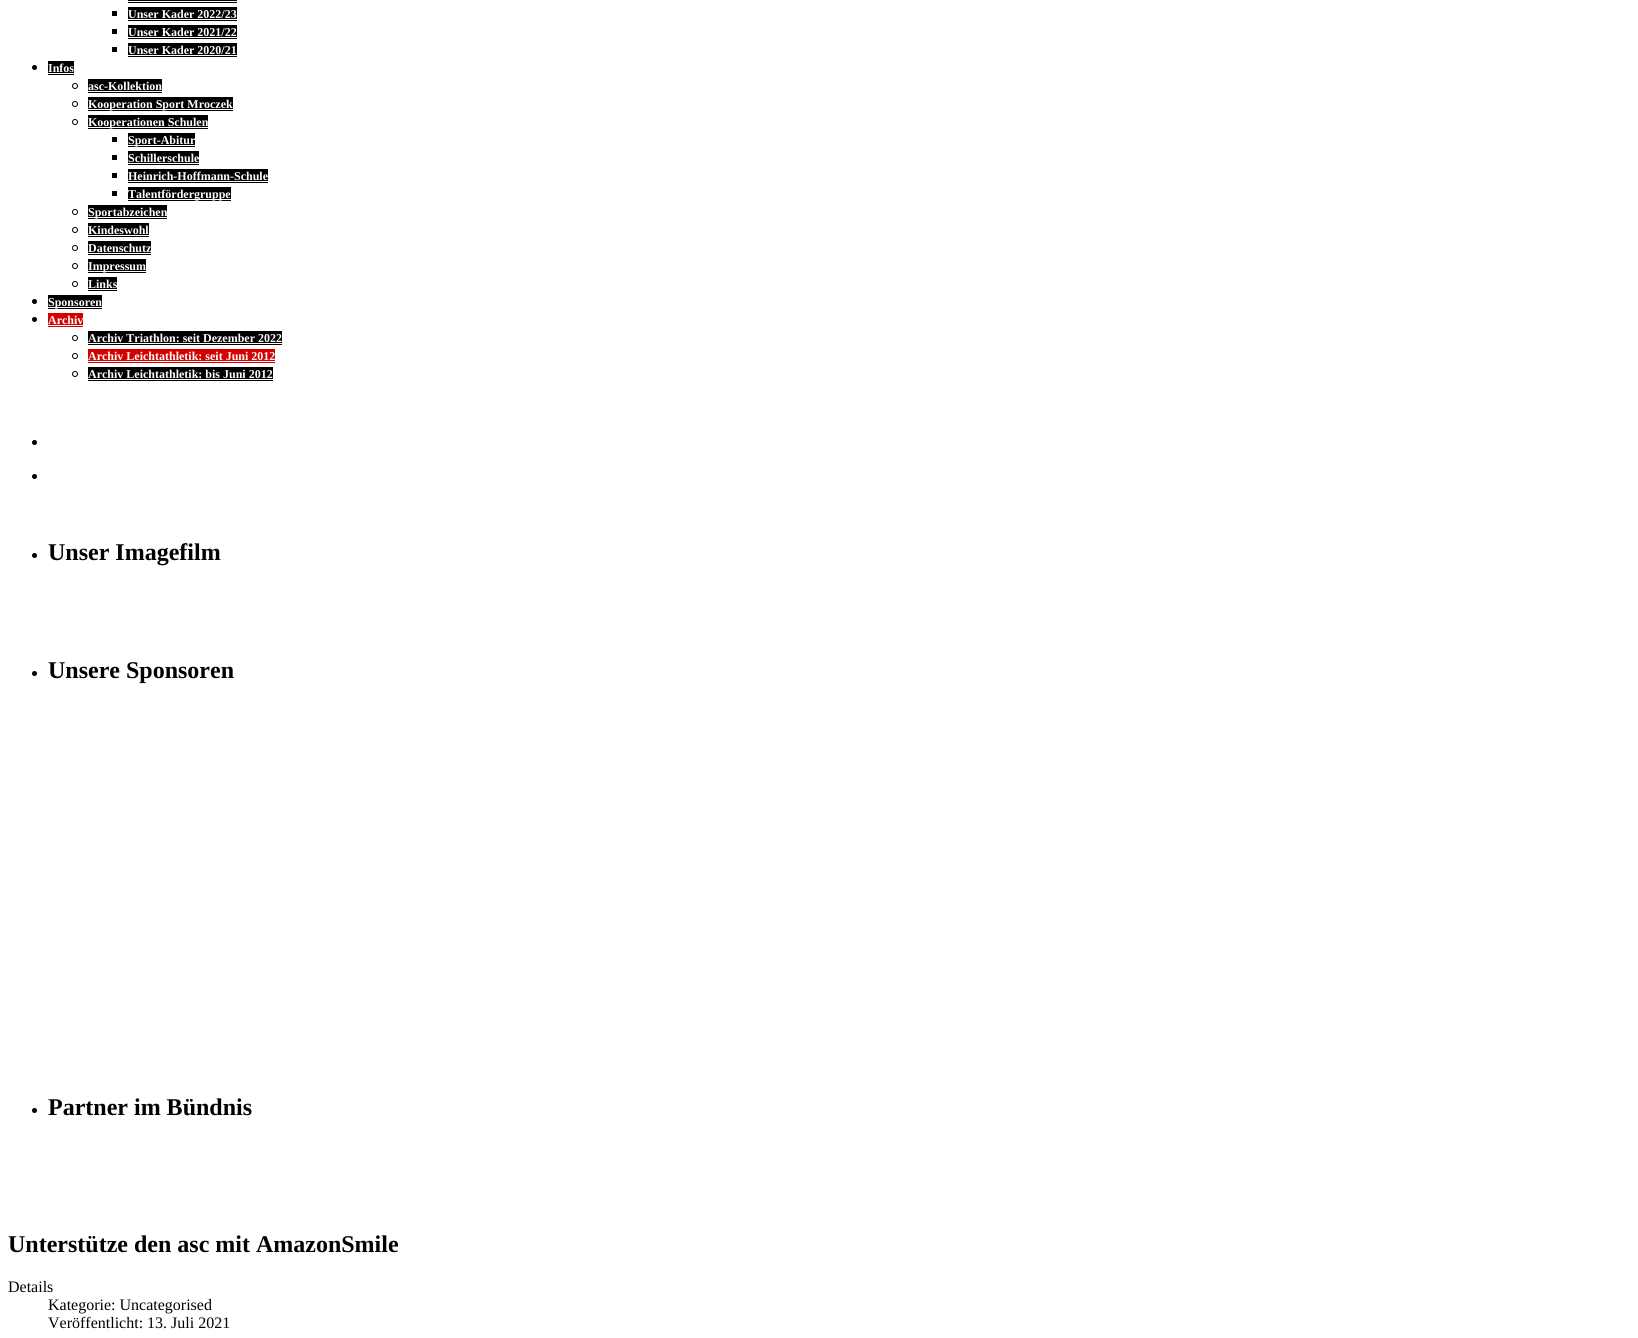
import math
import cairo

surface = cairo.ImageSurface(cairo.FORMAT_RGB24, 1638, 1338)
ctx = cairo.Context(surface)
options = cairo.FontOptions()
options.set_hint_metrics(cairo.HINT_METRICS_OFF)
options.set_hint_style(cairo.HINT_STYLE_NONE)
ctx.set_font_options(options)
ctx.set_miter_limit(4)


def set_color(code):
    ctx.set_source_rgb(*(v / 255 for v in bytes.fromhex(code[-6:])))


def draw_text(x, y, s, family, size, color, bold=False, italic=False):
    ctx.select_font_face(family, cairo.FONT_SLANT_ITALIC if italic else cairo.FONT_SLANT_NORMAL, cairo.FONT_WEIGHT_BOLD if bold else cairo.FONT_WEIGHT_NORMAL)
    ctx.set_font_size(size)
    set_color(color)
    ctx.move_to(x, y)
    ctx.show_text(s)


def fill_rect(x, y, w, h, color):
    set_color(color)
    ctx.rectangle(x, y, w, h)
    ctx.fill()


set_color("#ffffff")
ctx.paint()
fill_rect(128, 0, 109, 3, "#000000")
fill_rect(128, 1, 109, 1, "#ffffff")
fill_rect(112, 11, 5, 5, "#000000")
fill_rect(128, 7, 109, 14, "#000000")
draw_text(128, 18, "Unser Kader 2022/23", "Liberation Serif", 12, "#ffffff", bold=True)
fill_rect(128, 19, 109, 1, "#ffffff")
fill_rect(112, 29, 5, 5, "#000000")
fill_rect(128, 25, 109, 14, "#000000")
draw_text(128, 36, "Unser Kader 2021/22", "Liberation Serif", 12, "#ffffff", bold=True)
fill_rect(128, 37, 109, 1, "#ffffff")
fill_rect(112, 47, 5, 5, "#000000")
fill_rect(128, 43, 109, 14, "#000000")
draw_text(128, 54, "Unser Kader 2020/21", "Liberation Serif", 12, "#ffffff", bold=True)
fill_rect(128, 55, 109, 1, "#ffffff")
set_color("#000000")
ctx.new_path()
ctx.arc(34.5, 67.5, 2.5, 0, 2 * math.pi)
ctx.fill()
fill_rect(48, 61, 26, 14, "#000000")
draw_text(48, 72, "Infos", "Liberation Serif", 12, "#ffffff", bold=True)
fill_rect(48, 73, 26, 1, "#ffffff")
ctx.new_path()
ctx.arc(75, 86, 2.5, 0, 2 * math.pi)
set_color("#000000")
ctx.set_line_width(1)
ctx.stroke()
fill_rect(88, 79, 74, 14, "#000000")
draw_text(88, 90, "asc-Kollektion", "Liberation Serif", 12, "#ffffff", bold=True)
fill_rect(88, 91, 74, 1, "#ffffff")
ctx.new_path()
ctx.arc(75, 104, 2.5, 0, 2 * math.pi)
set_color("#000000")
ctx.stroke()
fill_rect(88, 97, 145, 14, "#000000")
fill_rect(88, 109, 145, 1, "#ffffff")
draw_text(88, 108, "Kooperation Sport Mroczek", "Liberation Serif", 12, "#ffffff", bold=True)
ctx.new_path()
ctx.arc(75, 122, 2.5, 0, 2 * math.pi)
set_color("#000000")
ctx.stroke()
fill_rect(88, 115, 120, 14, "#000000")
fill_rect(88, 127, 120, 1, "#ffffff")
draw_text(88, 126, "Kooperationen Schulen", "Liberation Serif", 12, "#ffffff", bold=True)
fill_rect(112, 137, 5, 5, "#000000")
fill_rect(128, 133, 67, 14, "#000000")
fill_rect(128, 145, 67, 1, "#ffffff")
draw_text(128, 144, "Sport-Abitur", "Liberation Serif", 12, "#ffffff", bold=True)
fill_rect(112, 155, 5, 5, "#000000")
fill_rect(128, 151, 71, 14, "#000000")
draw_text(128, 162, "Schillerschule", "Liberation Serif", 12, "#ffffff", bold=True)
fill_rect(128, 163, 71, 1, "#ffffff")
fill_rect(112, 173, 5, 5, "#000000")
fill_rect(128, 169, 140, 14, "#000000")
draw_text(128, 180, "Heinrich-Hoffmann-Schule", "Liberation Serif", 12, "#ffffff", bold=True)
fill_rect(128, 181, 140, 1, "#ffffff")
fill_rect(112, 191, 5, 5, "#000000")
fill_rect(128, 187, 103, 14, "#000000")
fill_rect(128, 199, 103, 1, "#ffffff")
draw_text(128, 198, "Talentfördergruppe", "Liberation Serif", 12, "#ffffff", bold=True)
ctx.new_path()
ctx.arc(75, 212, 2.5, 0, 2 * math.pi)
set_color("#000000")
ctx.stroke()
fill_rect(88, 205, 79, 14, "#000000")
fill_rect(88, 217, 79, 1, "#ffffff")
draw_text(88, 216, "Sportabzeichen", "Liberation Serif", 12, "#ffffff", bold=True)
ctx.new_path()
ctx.arc(75, 230, 2.5, 0, 2 * math.pi)
set_color("#000000")
ctx.stroke()
fill_rect(88, 223, 61, 14, "#000000")
draw_text(88, 234, "Kindeswohl", "Liberation Serif", 12, "#ffffff", bold=True)
fill_rect(88, 235, 61, 1, "#ffffff")
ctx.new_path()
ctx.arc(75, 248, 2.5, 0, 2 * math.pi)
set_color("#000000")
ctx.stroke()
fill_rect(88, 241, 63, 14, "#000000")
draw_text(88, 252, "Datenschutz", "Liberation Serif", 12, "#ffffff", bold=True)
fill_rect(88, 253, 63, 1, "#ffffff")
ctx.new_path()
ctx.arc(75, 266, 2.5, 0, 2 * math.pi)
set_color("#000000")
ctx.stroke()
fill_rect(88, 259, 58, 14, "#000000")
fill_rect(88, 271, 58, 1, "#ffffff")
draw_text(88, 270, "Impressum", "Liberation Serif", 12, "#ffffff", bold=True)
ctx.new_path()
ctx.arc(75, 284, 2.5, 0, 2 * math.pi)
set_color("#000000")
ctx.stroke()
fill_rect(88, 277, 29, 14, "#000000")
draw_text(88, 288, "Links", "Liberation Serif", 12, "#ffffff", bold=True)
fill_rect(88, 289, 29, 1, "#ffffff")
set_color("#000000")
ctx.new_path()
ctx.arc(34.5, 301.5, 2.5, 0, 2 * math.pi)
ctx.fill()
fill_rect(48, 295, 54, 14, "#000000")
fill_rect(48, 307, 54, 1, "#ffffff")
draw_text(48, 306, "Sponsoren", "Liberation Serif", 12, "#ffffff", bold=True)
set_color("#000000")
ctx.new_path()
ctx.arc(34.5, 319.5, 2.5, 0, 2 * math.pi)
ctx.fill()
fill_rect(48, 313, 35, 14, "#d50000")
draw_text(48, 324, "Archiv", "Liberation Serif", 12, "#ffffff", bold=True)
fill_rect(48, 325, 35, 1, "#ffffff")
ctx.new_path()
ctx.arc(75, 338, 2.5, 0, 2 * math.pi)
set_color("#000000")
ctx.stroke()
fill_rect(88, 331, 194, 14, "#000000")
draw_text(88, 342, "Archiv Triathlon: seit Dezember 2022", "Liberation Serif", 12, "#ffffff", bold=True)
fill_rect(88, 343, 194, 1, "#ffffff")
ctx.new_path()
ctx.arc(75, 356, 2.5, 0, 2 * math.pi)
set_color("#000000")
ctx.stroke()
fill_rect(88, 349, 187, 14, "#d50000")
draw_text(88, 360, "Archiv Leichtathletik: seit Juni 2012", "Liberation Serif", 12, "#ffffff", bold=True)
fill_rect(88, 361, 187, 1, "#ffffff")
ctx.new_path()
ctx.arc(75, 374, 2.5, 0, 2 * math.pi)
set_color("#000000")
ctx.stroke()
fill_rect(88, 367, 185, 14, "#000000")
draw_text(88, 378, "Archiv Leichtathletik: bis Juni 2012", "Liberation Serif", 12, "#ffffff", bold=True)
fill_rect(88, 379, 185, 1, "#ffffff")
set_color("#000000")
ctx.new_path()
ctx.arc(34.5, 442.5, 2.5, 0, 2 * math.pi)
ctx.fill()
ctx.arc(34.5, 476.5, 2.5, 0, 2 * math.pi)
ctx.fill()
ctx.arc(34.5, 555.5, 2.5, 0, 2 * math.pi)
ctx.fill()
draw_text(48, 560, "Unser Imagefilm", "Liberation Serif", 24, "#000000", bold=True)
ctx.new_path()
ctx.arc(34.5, 673.5, 2.5, 0, 2 * math.pi)
ctx.fill()
draw_text(48, 678, "Unsere Sponsoren", "Liberation Serif", 24, "#000000", bold=True)
ctx.new_path()
ctx.arc(34.5, 1110.5, 2.5, 0, 2 * math.pi)
ctx.fill()
draw_text(48, 1115, "Partner im Bündnis", "Liberation Serif", 24, "#000000", bold=True)
draw_text(8, 1252, "Unterstütze den asc mit AmazonSmile", "Liberation Serif", 24, "#000000", bold=True)
draw_text(8, 1292, "Details", "Liberation Serif", 16, "#000000")
draw_text(48, 1310, "Kategorie: Uncategorised", "Liberation Serif", 16, "#000000")
draw_text(48, 1328, "Veröffentlicht: 13. Juli 2021", "Liberation Serif", 16, "#000000")
surface.write_to_png("output.png")
